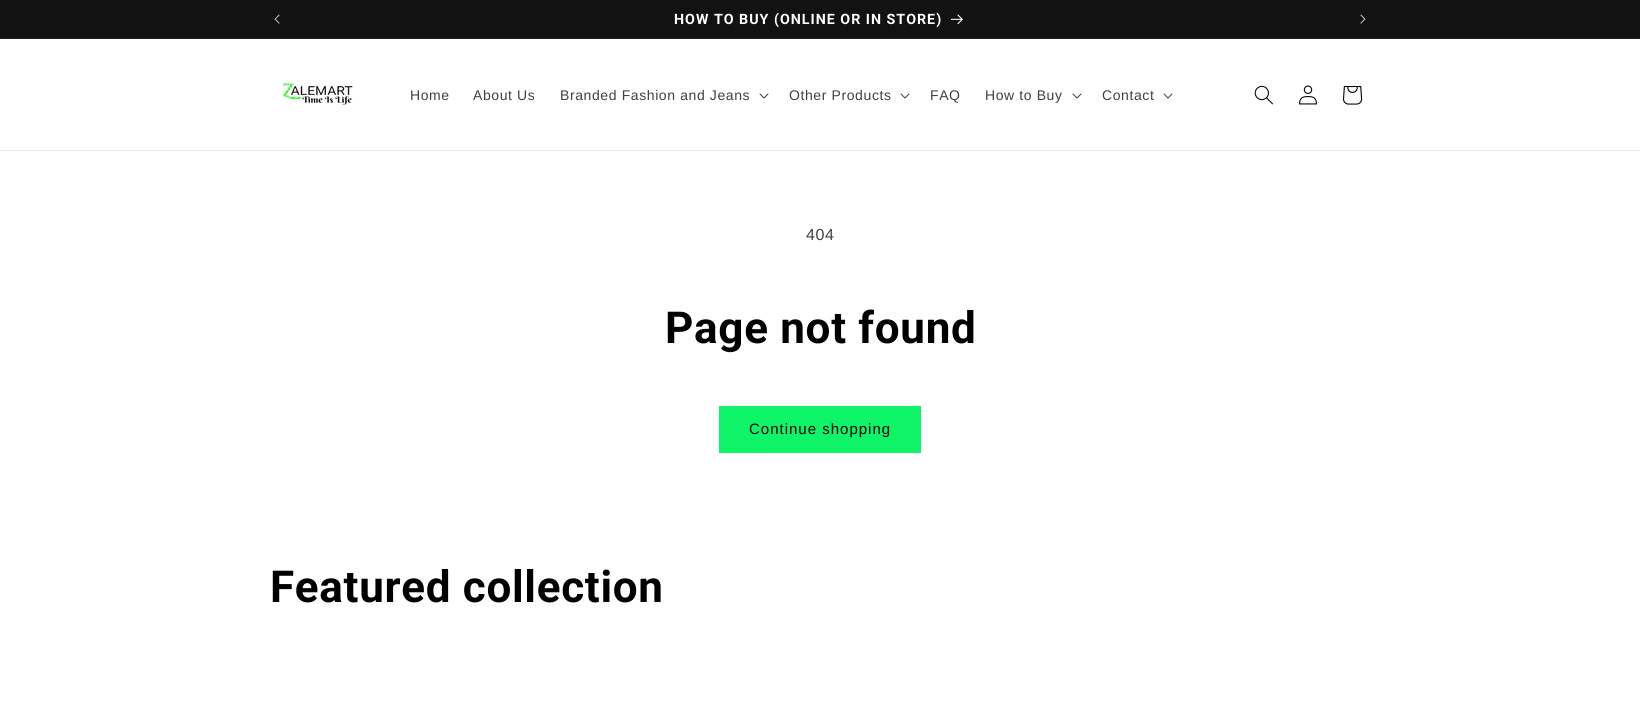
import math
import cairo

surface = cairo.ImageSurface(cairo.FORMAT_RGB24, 1640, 708)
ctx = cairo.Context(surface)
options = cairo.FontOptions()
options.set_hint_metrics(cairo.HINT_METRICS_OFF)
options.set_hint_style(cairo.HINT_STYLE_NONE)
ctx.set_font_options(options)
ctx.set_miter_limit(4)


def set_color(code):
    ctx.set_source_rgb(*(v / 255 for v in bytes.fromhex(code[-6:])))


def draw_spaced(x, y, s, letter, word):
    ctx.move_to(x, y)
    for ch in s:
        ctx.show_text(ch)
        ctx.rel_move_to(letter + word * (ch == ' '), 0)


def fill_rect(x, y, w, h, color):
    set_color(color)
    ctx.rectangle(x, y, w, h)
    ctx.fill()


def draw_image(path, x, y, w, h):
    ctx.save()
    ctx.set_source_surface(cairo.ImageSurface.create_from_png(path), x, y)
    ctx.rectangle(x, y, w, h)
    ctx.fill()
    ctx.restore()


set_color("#ffffff")
ctx.paint()
fill_rect(0, 0, 1640, 38, "#121212")
fill_rect(0, 38, 1640, 1, "#252525")
draw_image("assets/img1.png", 274, 14, 6, 10)
ctx.select_font_face("Roboto", cairo.FONT_SLANT_NORMAL, cairo.FONT_WEIGHT_BOLD)
ctx.set_font_size(14.25)
set_color("#ffffff")
draw_spaced(674, 24, "HOW TO BUY (ONLINE OR IN STORE)", 1, 0)
draw_image("assets/img2.png", 951, 14, 12, 11)
draw_image("assets/img3.png", 1360, 14, 6, 10)
fill_rect(0, 150, 1640, 1, "#ebebeb")
draw_image("assets/img4.png", 281, 82, 73, 24)
ctx.select_font_face("Liberation Sans")
ctx.set_font_size(14)
set_color("#404040")
draw_spaced(410, 100, "Home", 0.6, 0)
draw_spaced(473, 100, "About Us", 0.6, 0)
draw_spaced(560, 100, "Branded Fashion and Jeans", 0.6, 0)
draw_image("assets/img5.png", 759, 93, 10, 6)
draw_spaced(789, 100, "Other Products", 0.6, 0)
draw_image("assets/img5.png", 900, 93, 10, 6)
draw_spaced(930, 100, "FAQ", 0.6, 0)
draw_spaced(985, 100, "How to Buy", 0.6, 0)
draw_image("assets/img5.png", 1072, 93, 10, 6)
draw_spaced(1102, 100, "Contact", 0.6, 0)
draw_image("assets/img5.png", 1163, 93, 10, 6)
draw_image("assets/img6.png", 1254, 85, 19, 20)
draw_image("assets/img7.png", 1299, 85, 18, 20)
draw_image("assets/img8.png", 1343, 86, 20, 19)
ctx.set_font_size(16)
draw_spaced(806, 240, "404", 0.6, 0)
ctx.select_font_face("Roboto", cairo.FONT_SLANT_NORMAL, cairo.FONT_WEIGHT_BOLD)
ctx.set_font_size(44)
set_color("#000000")
draw_spaced(665, 343, "Page not found", 0.7, 0)
fill_rect(719, 406, 202, 47, "#0ff369")
ctx.select_font_face("Liberation Sans")
ctx.set_font_size(15)
set_color("#000000")
draw_spaced(749, 434, "Continue shopping", 1, 0)
ctx.select_font_face("Roboto", cairo.FONT_SLANT_NORMAL, cairo.FONT_WEIGHT_BOLD)
ctx.set_font_size(44)
draw_spaced(270, 602, "Featured collection", 0.7, 0)
surface.write_to_png("output.png")
